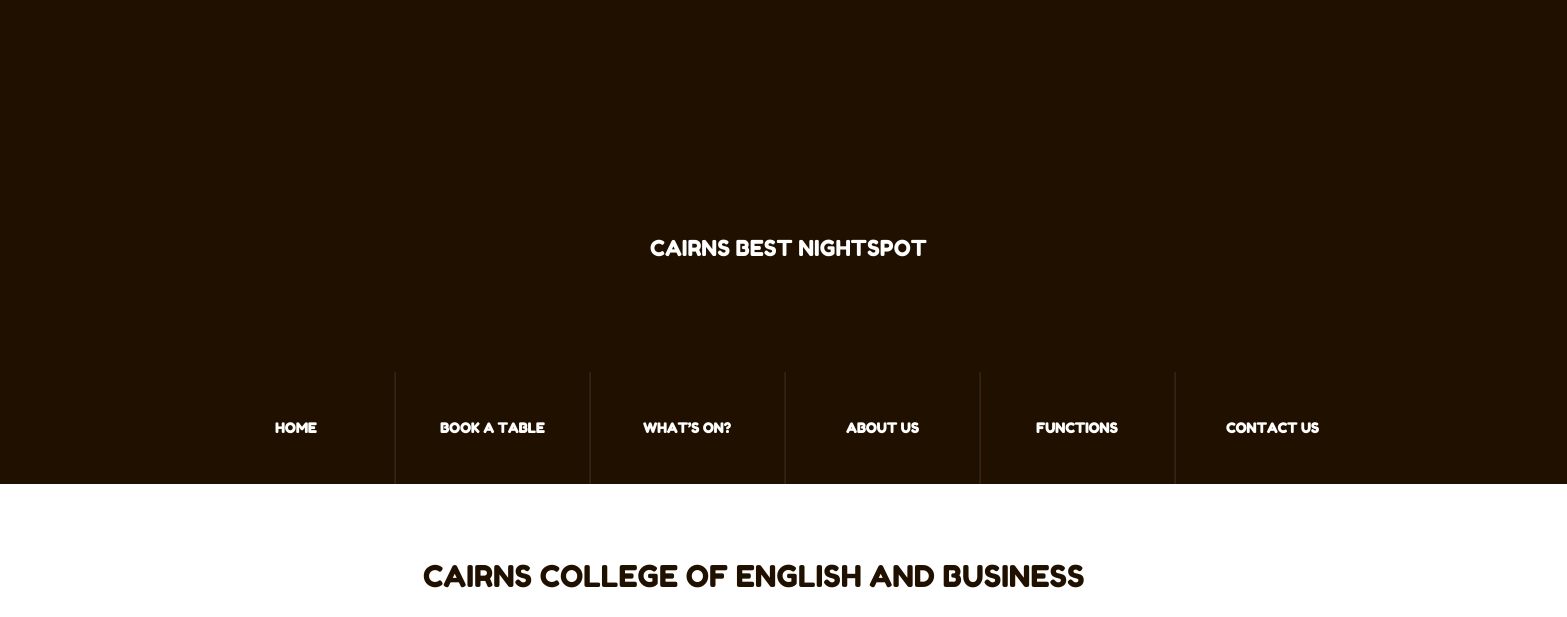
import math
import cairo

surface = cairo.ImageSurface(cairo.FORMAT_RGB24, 1567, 617)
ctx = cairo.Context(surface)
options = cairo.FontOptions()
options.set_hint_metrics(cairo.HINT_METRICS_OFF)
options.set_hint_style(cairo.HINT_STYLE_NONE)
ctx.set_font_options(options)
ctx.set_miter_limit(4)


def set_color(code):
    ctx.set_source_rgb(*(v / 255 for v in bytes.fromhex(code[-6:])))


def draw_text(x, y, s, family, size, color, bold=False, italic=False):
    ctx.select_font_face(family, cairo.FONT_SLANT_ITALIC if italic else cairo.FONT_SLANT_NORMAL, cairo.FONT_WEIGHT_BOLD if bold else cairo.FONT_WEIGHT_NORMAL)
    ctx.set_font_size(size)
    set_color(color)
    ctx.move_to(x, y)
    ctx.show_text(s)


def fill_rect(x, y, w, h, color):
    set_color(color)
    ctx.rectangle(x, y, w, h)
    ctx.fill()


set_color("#201000")
ctx.paint()
draw_text(650, 256, "CAIRNS BEST NIGHTSPOT", "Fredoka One", 22, "#ffffff")
draw_text(275, 433, "HOME", "Fredoka One", 14, "#ffffff", bold=True)
fill_rect(394, 372, 1, 112, "#1e2026")
fill_rect(395, 372, 1, 112, "#422100")
draw_text(440, 433, "BOOK A TABLE", "Fredoka One", 14, "#ffffff", bold=True)
fill_rect(589, 372, 1, 112, "#1e2026")
fill_rect(590, 372, 1, 112, "#422100")
draw_text(643, 433, "WHAT’S ON?", "Fredoka One", 14, "#ffffff", bold=True)
fill_rect(784, 372, 1, 112, "#1e2026")
fill_rect(785, 372, 1, 112, "#422100")
draw_text(846, 433, "ABOUT US", "Fredoka One", 14, "#ffffff", bold=True)
fill_rect(979, 372, 1, 112, "#1e2026")
fill_rect(980, 372, 1, 112, "#422100")
draw_text(1036, 433, "FUNCTIONS", "Fredoka One", 14, "#ffffff", bold=True)
fill_rect(1174, 372, 1, 112, "#1e2026")
fill_rect(1175, 372, 1, 112, "#422100")
draw_text(1226, 433, "CONTACT US", "Fredoka One", 14, "#ffffff", bold=True)
fill_rect(0, 484, 1567, 133, "#ffffff")
draw_text(423, 587, "CAIRNS COLLEGE OF ENGLISH AND BUSINESS", "Fredoka One", 30, "#201000")
surface.write_to_png("output.png")
